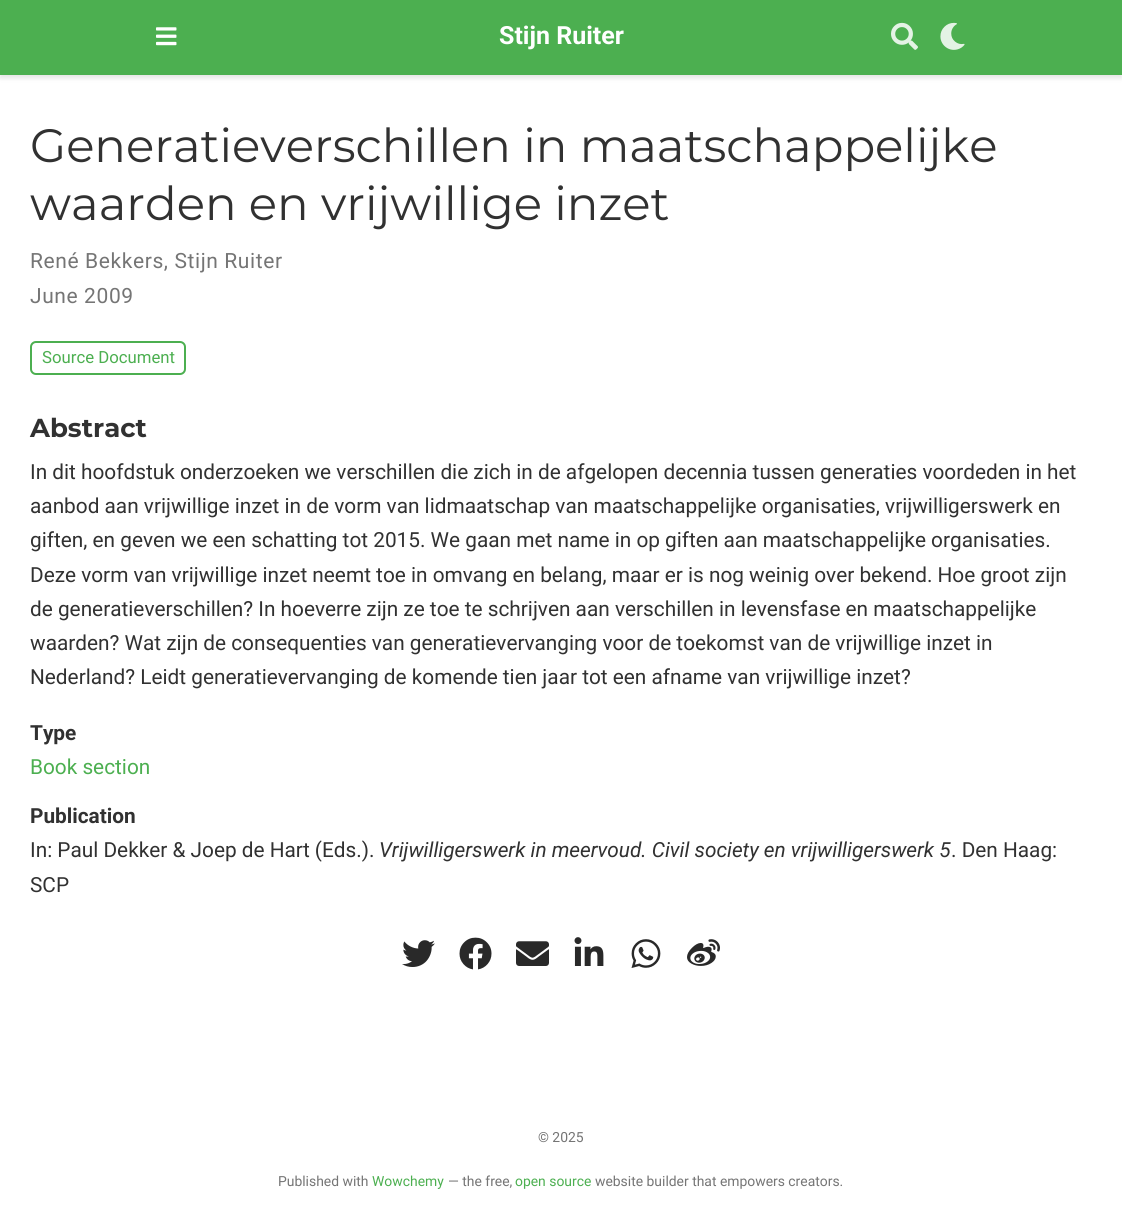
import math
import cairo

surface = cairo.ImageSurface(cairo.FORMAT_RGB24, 1122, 1213)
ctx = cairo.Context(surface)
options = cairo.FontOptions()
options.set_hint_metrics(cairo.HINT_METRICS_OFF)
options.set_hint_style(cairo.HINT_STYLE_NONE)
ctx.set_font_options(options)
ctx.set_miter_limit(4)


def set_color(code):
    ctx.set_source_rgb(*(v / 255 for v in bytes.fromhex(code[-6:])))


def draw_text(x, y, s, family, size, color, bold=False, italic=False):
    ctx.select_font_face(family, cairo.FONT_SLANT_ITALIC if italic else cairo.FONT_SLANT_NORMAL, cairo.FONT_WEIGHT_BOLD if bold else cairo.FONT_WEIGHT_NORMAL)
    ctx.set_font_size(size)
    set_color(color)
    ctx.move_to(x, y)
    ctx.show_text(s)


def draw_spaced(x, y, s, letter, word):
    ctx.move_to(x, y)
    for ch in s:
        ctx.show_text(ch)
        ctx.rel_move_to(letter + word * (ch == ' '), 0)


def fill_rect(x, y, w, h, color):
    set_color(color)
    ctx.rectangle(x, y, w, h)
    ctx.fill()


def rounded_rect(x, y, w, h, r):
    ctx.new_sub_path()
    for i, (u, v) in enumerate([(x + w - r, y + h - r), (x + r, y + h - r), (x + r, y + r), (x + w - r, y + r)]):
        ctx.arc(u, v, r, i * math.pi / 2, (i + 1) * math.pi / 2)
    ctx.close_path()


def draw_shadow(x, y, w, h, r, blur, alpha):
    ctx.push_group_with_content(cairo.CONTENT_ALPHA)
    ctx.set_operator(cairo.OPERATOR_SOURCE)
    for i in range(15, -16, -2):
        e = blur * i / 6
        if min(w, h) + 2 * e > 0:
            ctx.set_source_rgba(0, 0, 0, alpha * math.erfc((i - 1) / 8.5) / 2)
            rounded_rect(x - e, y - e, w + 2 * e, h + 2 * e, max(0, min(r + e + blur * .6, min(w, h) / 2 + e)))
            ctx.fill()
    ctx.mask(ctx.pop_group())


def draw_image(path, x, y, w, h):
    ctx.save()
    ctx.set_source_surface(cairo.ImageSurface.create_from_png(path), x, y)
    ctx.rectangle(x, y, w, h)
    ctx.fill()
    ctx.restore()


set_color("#ffffff")
ctx.paint()
set_color("#000000")
draw_shadow(0, 3, 1122, 75, 0, 2.5, 0.11)
fill_rect(0, 0, 1122, 75, "#4caf50")
draw_image("assets/img1.png", 156, 27, 21, 19)
draw_text(499, 44, "Stijn Ruiter", "Roboto", 25, "#ffffff", bold=True)
draw_image("assets/img2.png", 891, 22, 27, 28)
draw_image("assets/img3.png", 940, 22, 25, 28)
draw_text(30, 162, "Generatieverschillen in maatschappelijke", "Montserrat", 46.75, "#313131")
draw_text(30, 220, "waarden en vrijwillige inzet", "Montserrat", 46.75, "#313131")
ctx.select_font_face("Roboto")
ctx.set_font_size(21)
set_color("#757575")
draw_spaced(30, 268, "René Bekkers, Stijn Ruiter", 0.6, 0)
draw_spaced(30, 303, "June 2009", 0.6, 0)
rounded_rect(31, 342, 154, 32, 5)
set_color("#4caf50")
ctx.stroke()
draw_text(42, 363, "Source Document", "Roboto", 16.75, "#4caf50")
draw_text(30, 437, "Abstract", "Montserrat", 26, "#313131", bold=True)
draw_text(30, 479, "In dit hoofdstuk onderzoeken we verschillen die zich in de afgelopen decennia tussen generaties voordeden in het", "Roboto", 20.8, "#313131")
draw_text(30, 513, "aanbod aan vrijwillige inzet in de vorm van lidmaatschap van maatschappelijke organisaties, vrijwilligerswerk en", "Roboto", 20.8, "#313131")
draw_text(30, 547, "giften, en geven we een schatting tot 2015. We gaan met name in op giften aan maatschappelijke organisaties.", "Roboto", 20.8, "#313131")
draw_text(30, 582, "Deze vorm van vrijwillige inzet neemt toe in omvang en belang, maar er is nog weinig over bekend. Hoe groot zijn", "Roboto", 20.8, "#313131")
draw_text(30, 616, "de generatieverschillen? In hoeverre zijn ze toe te schrijven aan verschillen in levensfase en maatschappelijke", "Roboto", 20.8, "#313131")
draw_text(30, 650, "waarden? Wat zijn de consequenties van generatievervanging voor de toekomst van de vrijwillige inzet in", "Roboto", 20.8, "#313131")
draw_text(30, 684, "Nederland? Leidt generatievervanging de komende tien jaar tot een afname van vrijwillige inzet?", "Roboto", 20.8, "#313131")
draw_text(30, 740, "Type", "Roboto", 20.8, "#313131", bold=True)
draw_text(30, 774, "Book section", "Roboto", 20.8, "#4caf50")
draw_text(30, 823, "Publication", "Roboto", 20.8, "#313131", bold=True)
draw_text(30, 857, "In: Paul Dekker & Joep de Hart (Eds.).", "Roboto", 20.8, "#313131")
draw_text(379, 857, "Vrijwilligerswerk in meervoud. Civil society en vrijwilligerswerk 5", "Roboto", 20.8, "#313131", italic=True)
draw_text(951, 857, ". Den Haag:", "Roboto", 20.8, "#313131")
draw_text(30, 892, "SCP", "Roboto", 20.8, "#313131")
draw_image("assets/img4.png", 402, 940, 33, 27)
draw_image("assets/img5.png", 459, 937, 33, 33)
draw_image("assets/img6.png", 516, 941, 33, 25)
draw_image("assets/img7.png", 574, 937, 30, 29)
draw_image("assets/img8.png", 631, 939, 30, 29)
draw_image("assets/img9.png", 687, 939, 33, 27)
draw_text(538, 1142, "© 2025", "Roboto", 13.9, "#757575")
draw_text(278, 1186, "Published with", "Roboto", 13.9, "#757575")
draw_text(372, 1186, "Wowchemy", "Roboto", 13.9, "#4caf50")
draw_text(448, 1186, "— the free,", "Roboto", 13.9, "#757575")
draw_text(515, 1186, "open source", "Roboto", 13.9, "#4caf50")
draw_text(595, 1186, "website builder that empowers creators.", "Roboto", 13.9, "#757575")
surface.write_to_png("output.png")
